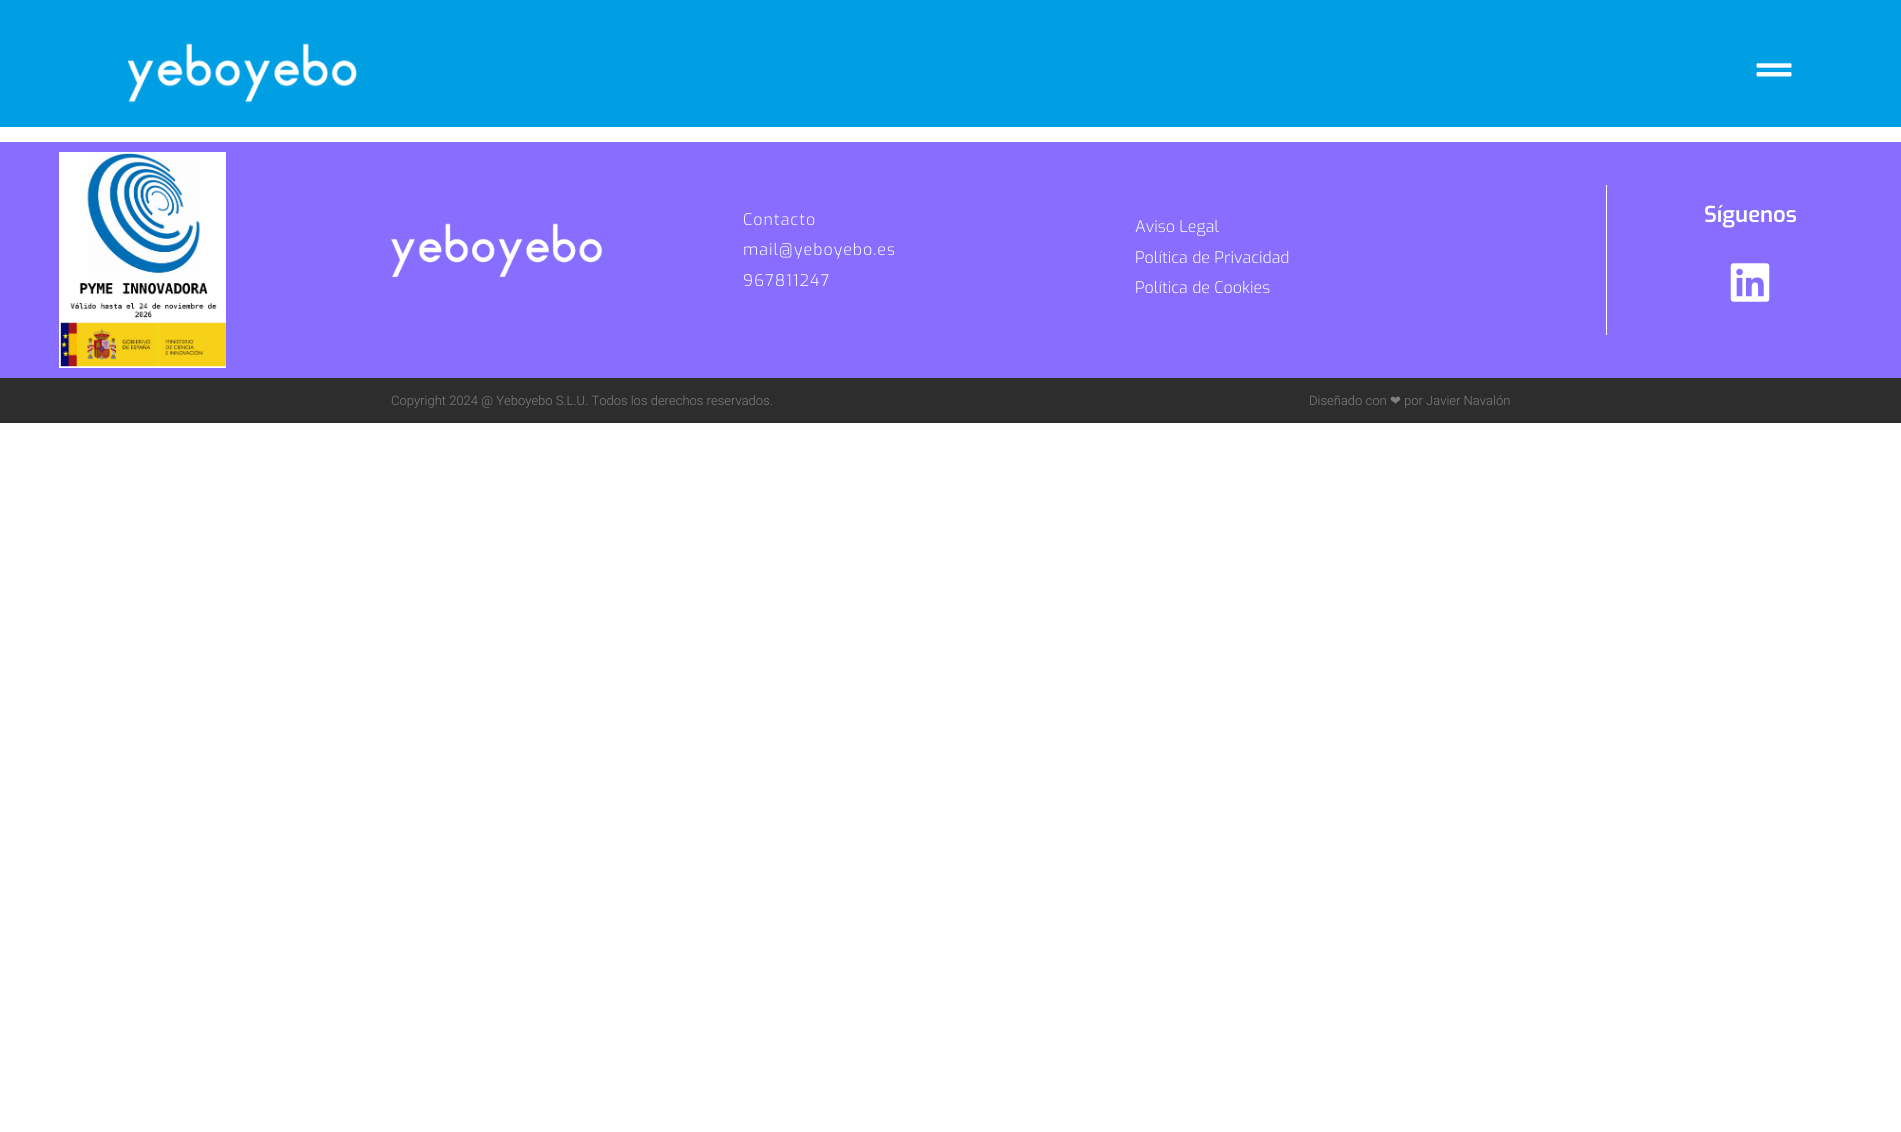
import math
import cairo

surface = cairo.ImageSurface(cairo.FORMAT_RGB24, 1901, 1132)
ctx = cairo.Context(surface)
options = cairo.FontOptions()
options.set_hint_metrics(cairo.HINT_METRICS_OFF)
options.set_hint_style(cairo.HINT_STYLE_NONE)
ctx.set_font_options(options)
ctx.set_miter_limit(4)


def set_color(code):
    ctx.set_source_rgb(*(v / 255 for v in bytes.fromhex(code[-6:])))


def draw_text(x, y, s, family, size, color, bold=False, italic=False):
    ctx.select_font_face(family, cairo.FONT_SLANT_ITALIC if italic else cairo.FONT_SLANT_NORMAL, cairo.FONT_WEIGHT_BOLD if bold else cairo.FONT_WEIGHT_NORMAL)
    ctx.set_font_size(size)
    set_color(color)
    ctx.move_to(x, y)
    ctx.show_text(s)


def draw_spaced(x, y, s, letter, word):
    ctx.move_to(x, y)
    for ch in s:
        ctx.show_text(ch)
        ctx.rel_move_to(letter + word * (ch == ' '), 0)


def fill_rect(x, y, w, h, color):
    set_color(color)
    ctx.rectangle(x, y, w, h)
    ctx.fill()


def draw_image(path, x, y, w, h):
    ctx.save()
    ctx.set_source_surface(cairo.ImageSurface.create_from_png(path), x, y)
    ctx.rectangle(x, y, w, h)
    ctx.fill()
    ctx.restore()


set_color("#ffffff")
ctx.paint()
fill_rect(0, 0, 1901, 127, "#009fe3")
draw_image("assets/img1.png", 127, 43, 230, 60)
draw_image("assets/img2.png", 1756, 63, 36, 14)
fill_rect(0, 142, 1901, 236, "#876eff")
draw_image("assets/img3.png", 59, 152, 167, 216)
draw_image("assets/img4.png", 391, 223, 212, 54)
ctx.select_font_face("Exo Light")
ctx.set_font_size(16)
set_color("#ffffff")
draw_spaced(743, 225, "Contacto", 1, 0)
draw_spaced(743, 255, "mail@yeboyebo.es", 1, 0)
draw_spaced(743, 286, "967811247", 1, 0)
draw_text(1135, 232, "Aviso Legal", "Exo Light", 16, "#ffffff")
draw_text(1135, 263, "Política de Privacidad", "Exo Light", 16, "#ffffff")
draw_text(1135, 293, "Política de Cookies", "Exo Light", 16, "#ffffff")
fill_rect(1606, 185, 1, 150, "#ffffff")
draw_text(1704, 222, "Síguenos", "Exo SemiBold", 22, "#ffffff")
draw_image("assets/img5.png", 1730, 263, 40, 39)
fill_rect(0, 378, 1901, 45, "#2d2d2d")
draw_text(391, 405, "Copyright 2024 @ Yeboyebo S.L.U. Todos los derechos reservados.", "Roboto Light", 13, "#7f7f7f")
draw_text(1309, 405, "Diseñado con", "Roboto Light", 13, "#7f7f7f")
draw_text(1390, 405, "❤", "DejaVu Sans", 13, "#7f7f7f")
draw_text(1404, 405, "por Javier Navalón", "Roboto Light", 13, "#7f7f7f")
surface.write_to_png("output.png")
